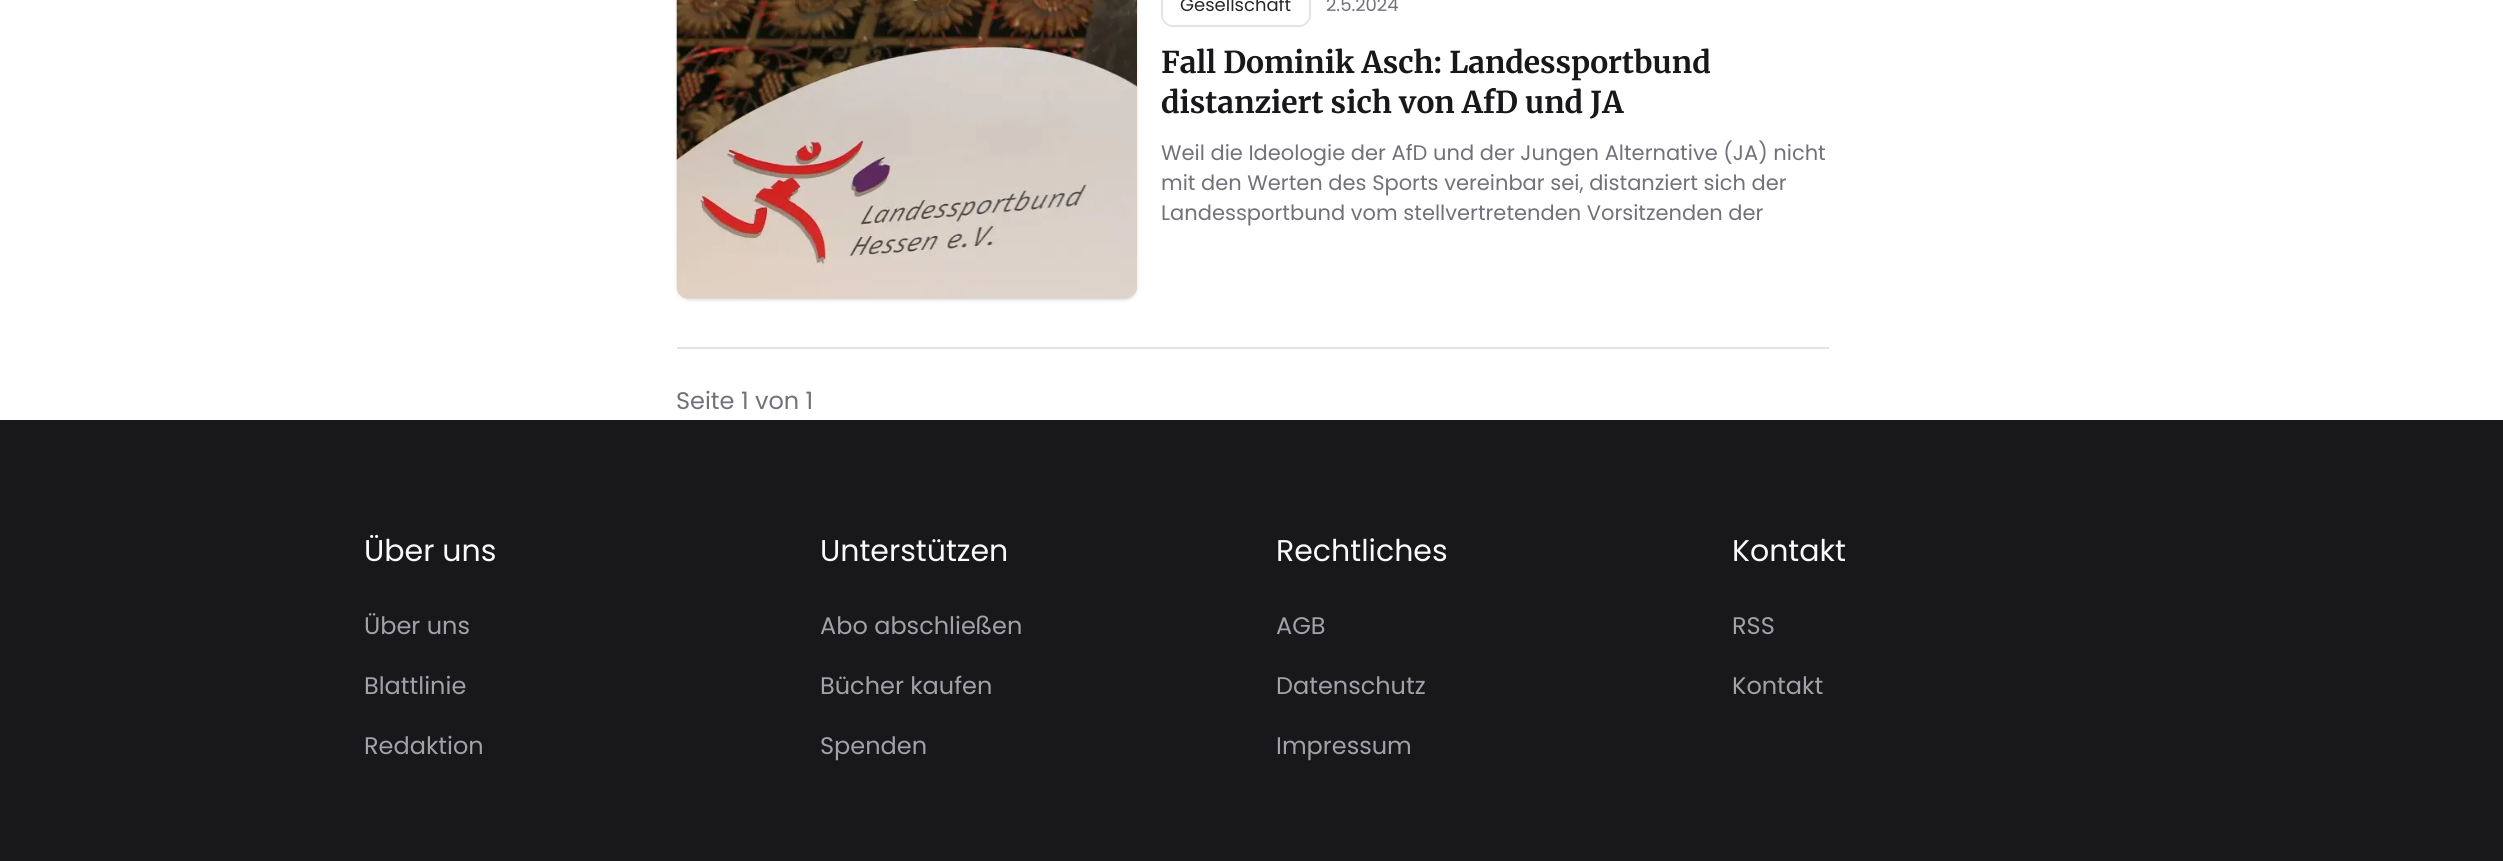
import math
import cairo

surface = cairo.ImageSurface(cairo.FORMAT_RGB24, 2503, 861)
ctx = cairo.Context(surface)
options = cairo.FontOptions()
options.set_hint_metrics(cairo.HINT_METRICS_OFF)
options.set_hint_style(cairo.HINT_STYLE_NONE)
ctx.set_font_options(options)
ctx.set_miter_limit(4)


def set_color(code):
    ctx.set_source_rgb(*(v / 255 for v in bytes.fromhex(code[-6:])))


def draw_text(x, y, s, family, size, color, bold=False, italic=False):
    ctx.select_font_face(family, cairo.FONT_SLANT_ITALIC if italic else cairo.FONT_SLANT_NORMAL, cairo.FONT_WEIGHT_BOLD if bold else cairo.FONT_WEIGHT_NORMAL)
    ctx.set_font_size(size)
    set_color(color)
    ctx.move_to(x, y)
    ctx.show_text(s)


def fill_rect(x, y, w, h, color):
    set_color(color)
    ctx.rectangle(x, y, w, h)
    ctx.fill()


def rounded_rect(x, y, w, h, r):
    ctx.new_sub_path()
    for i, (u, v) in enumerate([(x + w - r, y + h - r), (x + r, y + h - r), (x + r, y + r), (x + w - r, y + r)]):
        ctx.arc(u, v, r, i * math.pi / 2, (i + 1) * math.pi / 2)
    ctx.close_path()


def draw_shadow(x, y, w, h, r, blur, alpha):
    ctx.push_group_with_content(cairo.CONTENT_ALPHA)
    ctx.set_operator(cairo.OPERATOR_SOURCE)
    for i in range(15, -16, -2):
        e = blur * i / 6
        if min(w, h) + 2 * e > 0:
            ctx.set_source_rgba(0, 0, 0, alpha * math.erfc((i - 1) / 8.5) / 2)
            rounded_rect(x - e, y - e, w + 2 * e, h + 2 * e, max(0, min(r + e + blur * .6, min(w, h) / 2 + e)))
            ctx.fill()
    ctx.mask(ctx.pop_group())


def draw_image(path, x, y, w, h):
    ctx.save()
    ctx.set_source_surface(cairo.ImageSurface.create_from_png(path), x, y)
    ctx.rectangle(x, y, w, h)
    ctx.fill()
    ctx.restore()


set_color("#ffffff")
ctx.paint()
set_color("#000000")
draw_shadow(678, -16, 458, 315, 11, 1.5, 0.1)
draw_shadow(677, -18, 460, 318, 12, 2, 0.1)
draw_image("assets/img1.png", 676, 0, 461, 299)
rounded_rect(1162, -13, 148, 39, 11)
set_color("#e4e4e7")
ctx.stroke()
draw_text(1180, 11, "Gesellschaft", "Poppins", 18, "#27272a")
draw_text(1326, 11, "2.5.2024", "Poppins", 18, "#71717a")
draw_text(1161, 73, "Fall Dominik Asch: Landessportbund", "Merriweather Light", 30, "#18181b")
draw_text(1161, 113, "distanziert sich von AfD und JA", "Merriweather Light", 30, "#18181b")
draw_text(1161, 160, "Weil die Ideologie der AfD und der Jungen Alternative (JA) nicht", "Poppins", 21, "#71717a")
draw_text(1161, 190, "mit den Werten des Sports vereinbar sei, distanziert sich der", "Poppins", 21, "#71717a")
draw_text(1161, 220, "Landessportbund vom stellvertretenden Vorsitzenden der", "Poppins", 21, "#71717a")
fill_rect(677, 347, 1152, 2, "#e4e4e7")
draw_text(676, 409, "Seite 1 von 1", "Poppins", 24, "#71717a")
fill_rect(0, 420, 2503, 441, "#18181b")
draw_text(364, 561, "Über uns", "Poppins", 30, "#fafafa")
draw_text(364, 634, "Über uns", "Poppins", 24, "#a1a1aa")
draw_text(364, 694, "Blattlinie", "Poppins", 24, "#a1a1aa")
draw_text(364, 754, "Redaktion", "Poppins", 24, "#a1a1aa")
draw_text(820, 561, "Unterstützen", "Poppins", 30, "#fafafa")
draw_text(820, 634, "Abo abschließen", "Poppins", 24, "#a1a1aa")
draw_text(820, 694, "Bücher kaufen", "Poppins", 24, "#a1a1aa")
draw_text(820, 754, "Spenden", "Poppins", 24, "#a1a1aa")
draw_text(1276, 561, "Rechtliches", "Poppins", 30, "#fafafa")
draw_text(1276, 634, "AGB", "Poppins", 24, "#a1a1aa")
draw_text(1276, 694, "Datenschutz", "Poppins", 24, "#a1a1aa")
draw_text(1276, 754, "Impressum", "Poppins", 24, "#a1a1aa")
draw_text(1732, 561, "Kontakt", "Poppins", 30, "#fafafa")
draw_text(1732, 634, "RSS", "Poppins", 24, "#a1a1aa")
draw_text(1732, 694, "Kontakt", "Poppins", 24, "#a1a1aa")
surface.write_to_png("output.png")
